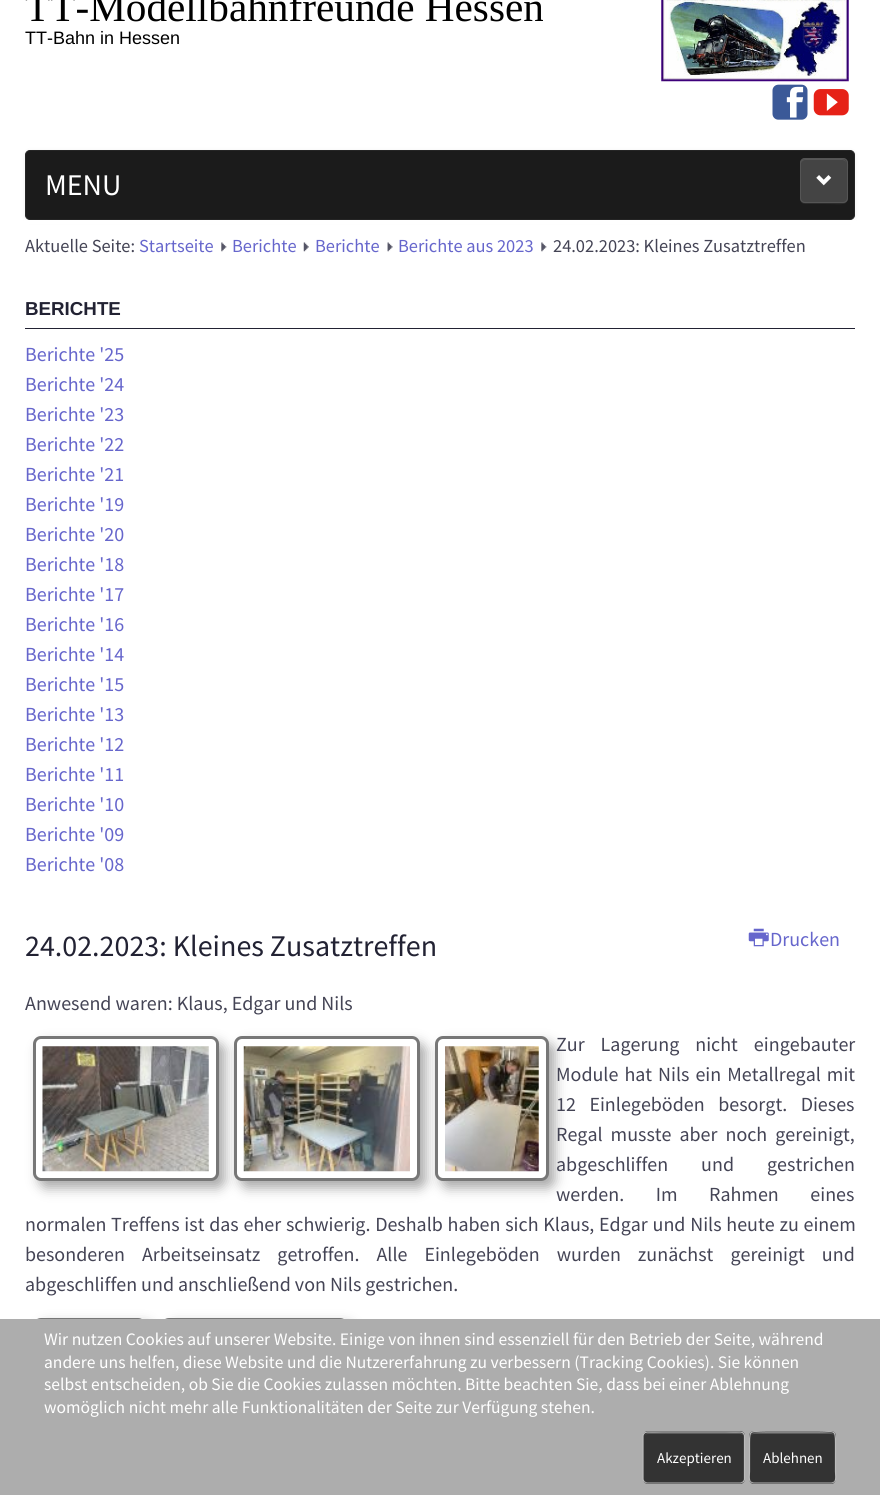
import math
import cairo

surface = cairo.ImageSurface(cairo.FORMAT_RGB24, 880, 1495)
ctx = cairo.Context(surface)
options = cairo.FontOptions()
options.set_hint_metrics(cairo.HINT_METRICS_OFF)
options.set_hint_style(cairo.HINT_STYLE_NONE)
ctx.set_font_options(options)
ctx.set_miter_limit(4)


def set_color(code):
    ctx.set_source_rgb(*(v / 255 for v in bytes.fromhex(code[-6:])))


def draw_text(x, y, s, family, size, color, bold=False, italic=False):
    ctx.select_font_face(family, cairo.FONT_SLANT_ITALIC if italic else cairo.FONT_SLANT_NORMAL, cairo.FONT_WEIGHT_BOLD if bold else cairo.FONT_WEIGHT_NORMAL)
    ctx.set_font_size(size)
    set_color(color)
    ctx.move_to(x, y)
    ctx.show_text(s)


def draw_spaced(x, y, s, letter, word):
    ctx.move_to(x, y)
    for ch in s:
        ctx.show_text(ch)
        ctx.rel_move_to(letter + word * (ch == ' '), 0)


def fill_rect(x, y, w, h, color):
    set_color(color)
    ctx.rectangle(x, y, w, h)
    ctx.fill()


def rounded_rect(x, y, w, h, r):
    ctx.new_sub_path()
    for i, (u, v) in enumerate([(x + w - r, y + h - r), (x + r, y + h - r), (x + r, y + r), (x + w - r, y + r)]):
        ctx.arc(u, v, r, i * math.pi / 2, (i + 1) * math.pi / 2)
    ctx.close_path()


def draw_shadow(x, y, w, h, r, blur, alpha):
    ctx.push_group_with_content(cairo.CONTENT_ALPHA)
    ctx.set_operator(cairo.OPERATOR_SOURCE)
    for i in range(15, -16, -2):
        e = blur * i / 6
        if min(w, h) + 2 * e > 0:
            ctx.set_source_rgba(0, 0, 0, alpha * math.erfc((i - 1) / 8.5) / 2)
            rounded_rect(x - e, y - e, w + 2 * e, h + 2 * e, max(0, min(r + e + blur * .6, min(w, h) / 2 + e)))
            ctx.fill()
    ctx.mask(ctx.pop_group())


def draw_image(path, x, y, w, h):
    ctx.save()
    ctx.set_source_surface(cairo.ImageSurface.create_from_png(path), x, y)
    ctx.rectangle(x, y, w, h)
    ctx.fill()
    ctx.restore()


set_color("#ffffff")
ctx.paint()
draw_text(25, 21, "TT-Modellbahnfreunde Hessen", "Liberation Serif", 41.25, "#000000")
draw_image("assets/img1.png", 661, 0, 188, 82)
draw_text(25, 44, "TT-Bahn in Hessen", "Liberation Sans", 18, "#000000")
draw_image("assets/img2.png", 772, 84, 36, 36)
draw_image("assets/img3.png", 813, 89, 36, 27)
set_color("#000000")
draw_shadow(25, 151, 830, 70, 5, 2.5, 0.07)
set_color("#1b1b1b")
rounded_rect(25.5, 150.5, 829, 69, 4.5)
ctx.fill_preserve()
set_color("#252525")
ctx.set_line_width(1)
ctx.stroke()
draw_text(45, 195, "MENU", "Source Sans Pro", 30, "#ffffff")
set_color("#2c2c2c")
ctx.new_path()
ctx.move_to(800, 198)
ctx.curve_to(800, 205, 805, 204, 811, 204)
ctx.line_to(824, 204)
ctx.curve_to(851, 204, 848, 208, 848, 182)
ctx.line_to(848, 170)
ctx.curve_to(848, 168, 849, 164, 847, 162)
ctx.line_to(848, 198)
ctx.curve_to(848, 200, 845, 202, 842, 202)
ctx.line_to(805, 202)
ctx.curve_to(802, 202, 800, 200, 800, 198)
ctx.close_path()
ctx.fill()
set_color("#444444")
rounded_rect(800, 158, 48, 45, 5)
ctx.fill()
set_color("#575757")
ctx.new_path()
ctx.move_to(805, 160)
ctx.line_to(842, 160)
ctx.curve_to(845, 160, 846, 162, 846, 164)
ctx.curve_to(846, 158, 841, 159, 836, 159)
ctx.line_to(811, 159)
ctx.curve_to(806, 159, 801, 158, 801, 164)
ctx.curve_to(801, 162, 803, 160, 805, 160)
ctx.close_path()
ctx.fill()
rounded_rect(800.5, 158.5, 47, 44, 4.5)
set_color("#555555")
ctx.stroke()
draw_image("assets/img4.png", 816, 175, 16, 11)
fill_rect(24, 220, 832, 4, "#ffffff")
draw_text(25, 252, "Aktuelle Seite:", "Source Sans Pro", 18.4, "#444455")
draw_text(139, 252, "Startseite", "Source Sans Pro", 18.4, "#6666cc")
draw_image("assets/img5.png", 221, 242, 6, 10)
draw_text(232, 252, "Berichte", "Source Sans Pro", 18.4, "#6666cc")
draw_image("assets/img6.png", 303, 242, 6, 10)
draw_text(315, 252, "Berichte", "Source Sans Pro", 18.4, "#6666cc")
draw_image("assets/img7.png", 387, 242, 6, 10)
draw_text(398, 252, "Berichte aus 2023", "Source Sans Pro", 18.4, "#6666cc")
draw_image("assets/img8.png", 541, 242, 6, 10)
draw_text(553, 252, "24.02.2023: Kleines Zusatztreffen", "Source Sans Pro", 18.4, "#444455")
fill_rect(25, 328, 830, 1, "#222233")
draw_text(25, 315, "BERICHTE", "Liberation Sans", 18.75, "#222233", bold=True)
draw_text(25, 361, "Berichte '25", "Source Sans Pro", 20, "#6666cc")
draw_text(25, 391, "Berichte '24", "Source Sans Pro", 20, "#6666cc")
draw_text(25, 421, "Berichte '23", "Source Sans Pro", 20, "#6666cc")
draw_text(25, 451, "Berichte '22", "Source Sans Pro", 20, "#6666cc")
draw_text(25, 481, "Berichte '21", "Source Sans Pro", 20, "#6666cc")
draw_text(25, 511, "Berichte '19", "Source Sans Pro", 20, "#6666cc")
draw_text(25, 541, "Berichte '20", "Source Sans Pro", 20, "#6666cc")
draw_text(25, 571, "Berichte '18", "Source Sans Pro", 20, "#6666cc")
draw_text(25, 601, "Berichte '17", "Source Sans Pro", 20, "#6666cc")
draw_text(25, 631, "Berichte '16", "Source Sans Pro", 20, "#6666cc")
draw_text(25, 661, "Berichte '14", "Source Sans Pro", 20, "#6666cc")
draw_text(25, 691, "Berichte '15", "Source Sans Pro", 20, "#6666cc")
draw_text(25, 721, "Berichte '13", "Source Sans Pro", 20, "#6666cc")
draw_text(25, 751, "Berichte '12", "Source Sans Pro", 20, "#6666cc")
draw_text(25, 781, "Berichte '11", "Source Sans Pro", 20, "#6666cc")
draw_text(25, 811, "Berichte '10", "Source Sans Pro", 20, "#6666cc")
draw_text(25, 841, "Berichte '09", "Source Sans Pro", 20, "#6666cc")
draw_text(25, 871, "Berichte '08", "Source Sans Pro", 20, "#6666cc")
draw_text(25, 956, "24.02.2023: Kleines Zusatztreffen", "Source Sans Pro", 30, "#222233")
draw_image("assets/img9.png", 748, 928, 21, 19)
draw_text(770, 946, "Drucken", "Source Sans Pro", 20, "#6666cc")
draw_text(25, 1010, "Anwesend waren: Klaus, Edgar und Nils", "Source Sans Pro", 20, "#444455")
set_color("#aaaaaa")
draw_shadow(39, 1043, 186, 145, 8, 6, 1)
set_color("#ffffff")
rounded_rect(34.5, 1037.5, 183, 142, 6.5)
ctx.fill_preserve()
set_color("#777777")
ctx.set_line_width(3)
ctx.stroke()
draw_image("assets/img10.png", 42, 1046, 167, 126)
set_color("#aaaaaa")
draw_shadow(240, 1043, 186, 145, 8, 6, 1)
set_color("#ffffff")
rounded_rect(235.5, 1037.5, 183, 142, 6.5)
ctx.fill_preserve()
set_color("#777777")
ctx.stroke()
draw_image("assets/img11.png", 243, 1046, 167, 126)
set_color("#aaaaaa")
draw_shadow(441, 1043, 114, 145, 8, 6, 1)
set_color("#ffffff")
rounded_rect(436.5, 1037.5, 111, 142, 6.5)
ctx.fill_preserve()
set_color("#777777")
ctx.stroke()
draw_image("assets/img12.png", 445, 1046, 94, 126)
set_color("#444455")
draw_spaced(556, 1051, "Zur Lagerung nicht eingebauter", 0, 12)
draw_spaced(556, 1081, "Module hat Nils ein Metallregal mit", 0, 2)
draw_spaced(556, 1111, "12 Einlegeböden besorgt. Dieses", 0, 9.5)
draw_spaced(556, 1141, "Regal musste aber noch gereinigt,", 0, 4)
draw_spaced(556, 1171, "abgeschliffen und gestrichen", 0, 29)
draw_spaced(556, 1201, "werden. Im Rahmen eines", 0, 27.5)
draw_spaced(25, 1231, "normalen Treffens ist das eher schwierig. Deshalb haben sich Klaus, Edgar und Nils heute zu einem", 0, 0.75)
draw_spaced(25, 1261, "besonderen Arbeitseinsatz getroffen. Alle Einlegeböden wurden zunächst gereinigt und", 0, 13)
draw_text(25, 1291, "abgeschliffen und anschließend von Nils gestrichen.", "Source Sans Pro", 20, "#444455")
set_color("#aaaaaa")
draw_shadow(39, 1324, 114, 145, 8, 6, 1)
rounded_rect(34.5, 1319.5, 110, 142, 6.5)
set_color("#777777")
ctx.stroke()
set_color("#aaaaaa")
draw_shadow(168, 1324, 186, 145, 8, 6, 1)
rounded_rect(162.5, 1319.5, 184, 142, 6.5)
set_color("#777777")
ctx.stroke()
fill_rect(0, 1319, 880, 176, "#adadad")
draw_text(44, 1345, "Wir nutzen Cookies auf unserer Website. Einige von ihnen sind essenziell für den Betrieb der Seite, während", "Source Sans Pro", 17.5, "#ffffff")
draw_text(44, 1368, "andere uns helfen, diese Website und die Nutzererfahrung zu verbessern (Tracking Cookies). Sie können", "Source Sans Pro", 17.5, "#ffffff")
draw_text(44, 1390, "selbst entscheiden, ob Sie die Cookies zulassen möchten. Bitte beachten Sie, dass bei einer Ablehnung", "Source Sans Pro", 17.5, "#ffffff")
draw_text(44, 1413, "womöglich nicht mehr alle Funktionalitäten der Seite zur Verfügung stehen.", "Source Sans Pro", 17.5, "#ffffff")
set_color("#333333")
rounded_rect(643, 1431, 102, 53, 5)
ctx.fill()
set_color("#5c5c5c")
ctx.new_path()
ctx.move_to(648, 1434)
ctx.line_to(740, 1434)
ctx.curve_to(742, 1434, 744, 1435, 744, 1438)
ctx.curve_to(744, 1429, 729, 1433, 725, 1433)
ctx.line_to(663, 1433)
ctx.curve_to(659, 1433, 644, 1429, 644, 1438)
ctx.curve_to(644, 1435, 645, 1434, 648, 1434)
ctx.close_path()
ctx.fill()
ctx.new_path()
ctx.move_to(743, 1482)
ctx.line_to(740.5, 1483)
ctx.line_to(647, 1483)
ctx.line_to(644.5, 1482)
set_color("#a2a2a2")
ctx.set_line_width(1.2)
ctx.stroke()
ctx.new_path()
ctx.move_to(644.5, 1482)
ctx.curve_to(643.5, 1481, 643, 1480, 643, 1479)
ctx.line_to(643, 1436)
ctx.curve_to(643, 1435, 643.5, 1434, 644.5, 1433)
ctx.curve_to(645, 1432.5, 646.5, 1432, 647.5, 1432)
ctx.line_to(740, 1432)
ctx.curve_to(741, 1432, 742.5, 1432.5, 743, 1433)
ctx.curve_to(744, 1434, 744.5, 1435, 744.5, 1436)
ctx.line_to(744.5, 1479)
ctx.curve_to(744.5, 1480, 744, 1481, 743, 1482)
set_color("#bbbbbb")
ctx.stroke()
draw_text(657, 1463, "Akzeptieren", "Source Sans Pro", 15, "#ffffff")
set_color("#333333")
rounded_rect(749, 1431, 87, 53, 5)
ctx.fill()
set_color("#5c5c5c")
ctx.new_path()
ctx.move_to(754, 1434)
ctx.line_to(831, 1434)
ctx.curve_to(833, 1434, 835, 1435, 835, 1438)
ctx.curve_to(835, 1430, 823, 1433, 818, 1433)
ctx.line_to(767, 1433)
ctx.curve_to(762, 1433, 750, 1430, 750, 1438)
ctx.curve_to(750, 1435, 752, 1434, 754, 1434)
ctx.close_path()
ctx.fill()
ctx.new_path()
ctx.move_to(834.5, 1482)
ctx.line_to(831.5, 1483)
ctx.line_to(753.5, 1483)
ctx.line_to(750.5, 1482)
set_color("#a2a2a2")
ctx.stroke()
ctx.new_path()
ctx.move_to(750.5, 1482)
ctx.curve_to(748.5, 1479.5, 749.5, 1474, 749.5, 1471.5)
ctx.line_to(749.5, 1443.5)
ctx.curve_to(749.5, 1428.5, 750.5, 1432, 766.5, 1432)
ctx.line_to(818.5, 1432)
ctx.curve_to(834.5, 1432, 835.5, 1428.5, 835.5, 1443.5)
ctx.line_to(835.5, 1471.5)
ctx.curve_to(835.5, 1474, 836.5, 1479.5, 834.5, 1482)
set_color("#bbbbbb")
ctx.stroke()
draw_text(763, 1463, "Ablehnen", "Source Sans Pro", 15, "#ffffff")
surface.write_to_png("output.png")
